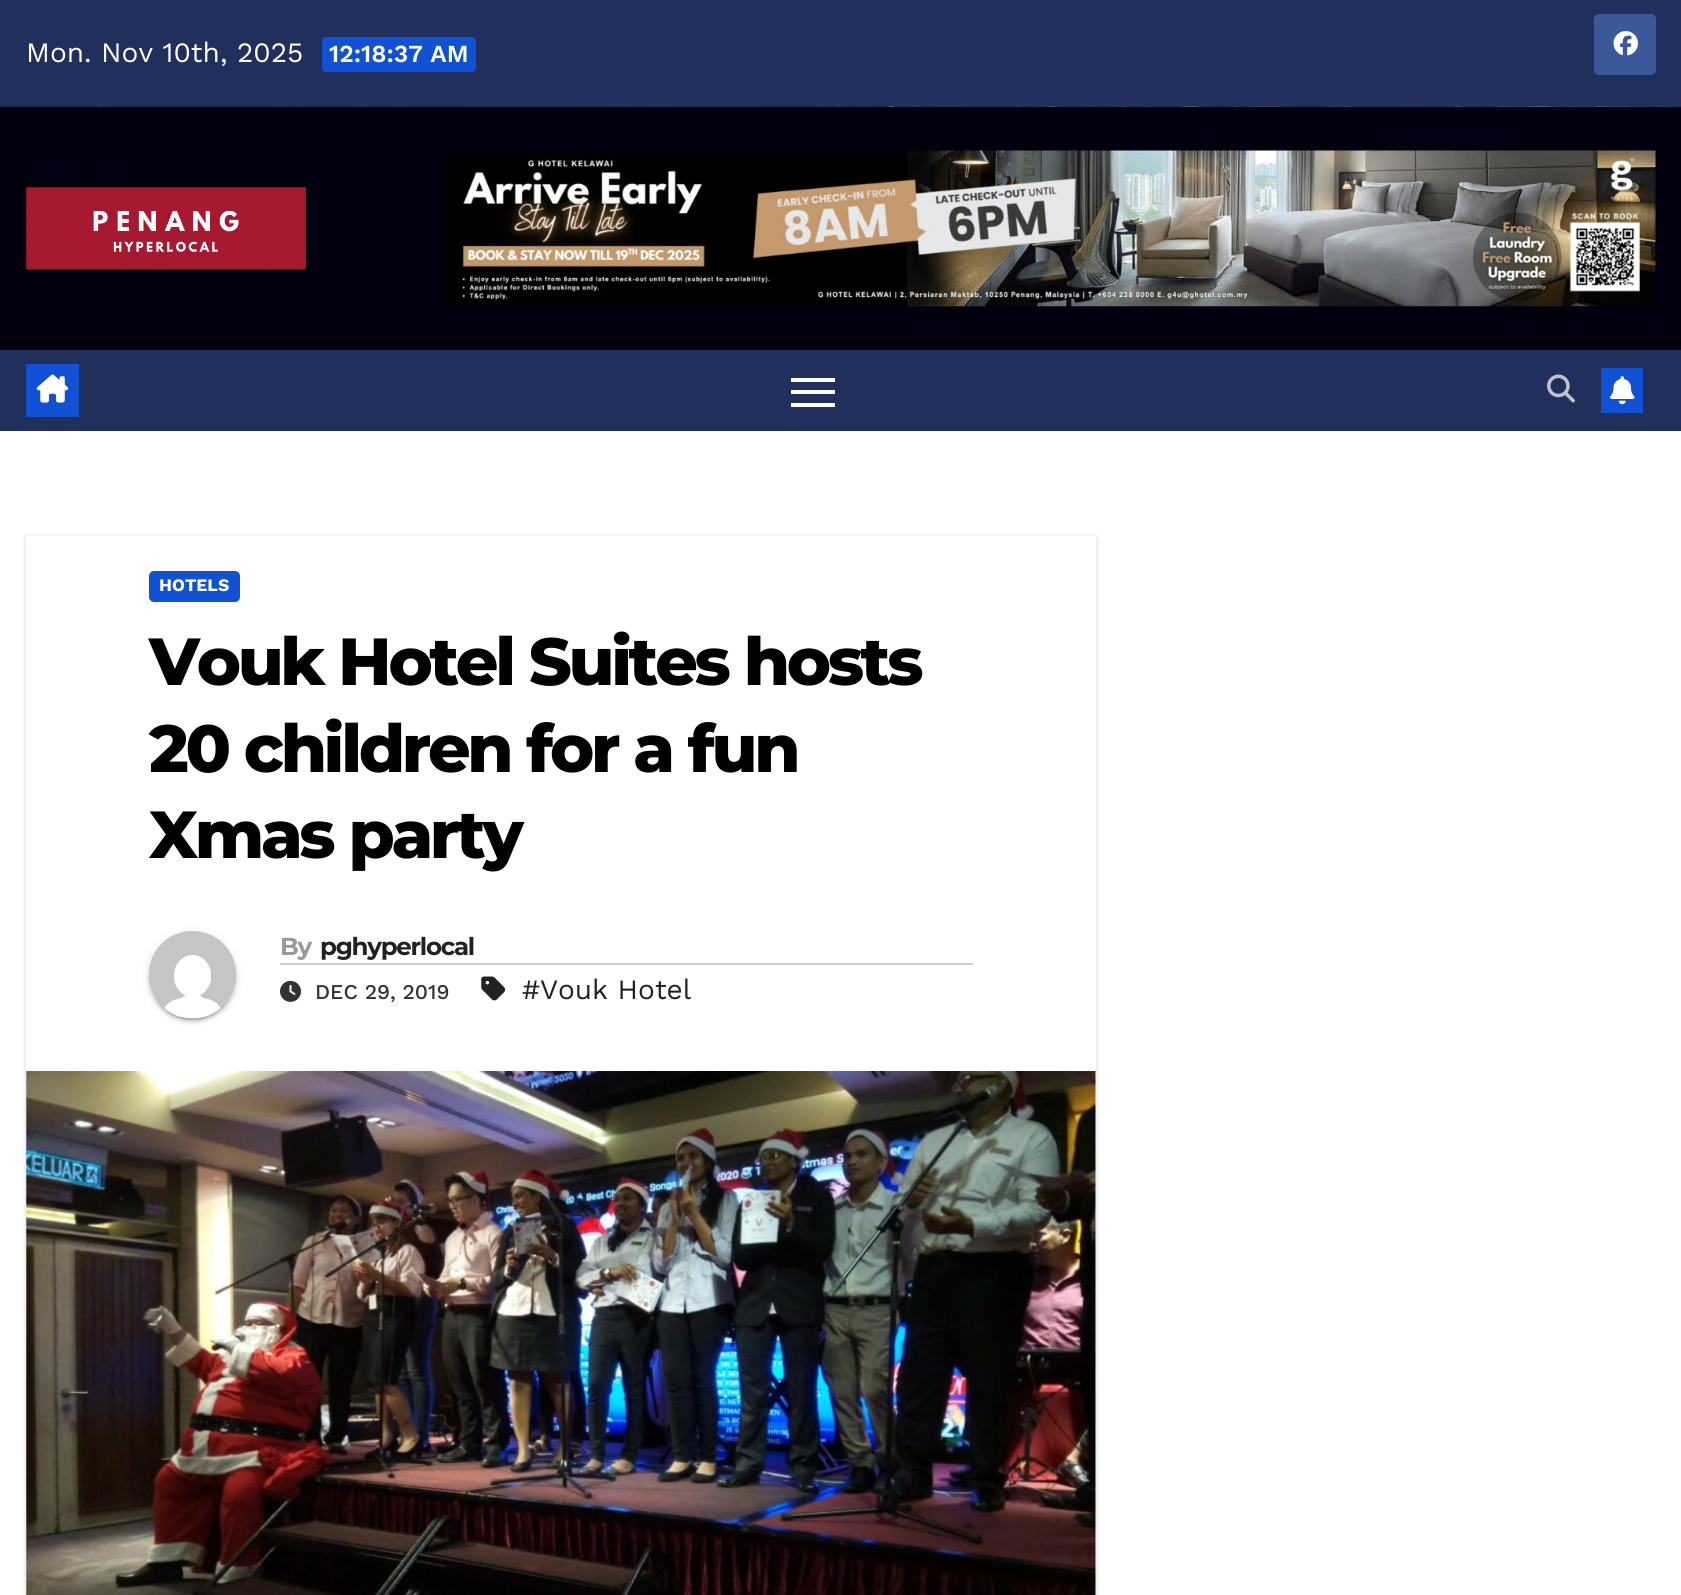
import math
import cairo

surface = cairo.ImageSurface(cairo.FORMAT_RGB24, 1681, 1595)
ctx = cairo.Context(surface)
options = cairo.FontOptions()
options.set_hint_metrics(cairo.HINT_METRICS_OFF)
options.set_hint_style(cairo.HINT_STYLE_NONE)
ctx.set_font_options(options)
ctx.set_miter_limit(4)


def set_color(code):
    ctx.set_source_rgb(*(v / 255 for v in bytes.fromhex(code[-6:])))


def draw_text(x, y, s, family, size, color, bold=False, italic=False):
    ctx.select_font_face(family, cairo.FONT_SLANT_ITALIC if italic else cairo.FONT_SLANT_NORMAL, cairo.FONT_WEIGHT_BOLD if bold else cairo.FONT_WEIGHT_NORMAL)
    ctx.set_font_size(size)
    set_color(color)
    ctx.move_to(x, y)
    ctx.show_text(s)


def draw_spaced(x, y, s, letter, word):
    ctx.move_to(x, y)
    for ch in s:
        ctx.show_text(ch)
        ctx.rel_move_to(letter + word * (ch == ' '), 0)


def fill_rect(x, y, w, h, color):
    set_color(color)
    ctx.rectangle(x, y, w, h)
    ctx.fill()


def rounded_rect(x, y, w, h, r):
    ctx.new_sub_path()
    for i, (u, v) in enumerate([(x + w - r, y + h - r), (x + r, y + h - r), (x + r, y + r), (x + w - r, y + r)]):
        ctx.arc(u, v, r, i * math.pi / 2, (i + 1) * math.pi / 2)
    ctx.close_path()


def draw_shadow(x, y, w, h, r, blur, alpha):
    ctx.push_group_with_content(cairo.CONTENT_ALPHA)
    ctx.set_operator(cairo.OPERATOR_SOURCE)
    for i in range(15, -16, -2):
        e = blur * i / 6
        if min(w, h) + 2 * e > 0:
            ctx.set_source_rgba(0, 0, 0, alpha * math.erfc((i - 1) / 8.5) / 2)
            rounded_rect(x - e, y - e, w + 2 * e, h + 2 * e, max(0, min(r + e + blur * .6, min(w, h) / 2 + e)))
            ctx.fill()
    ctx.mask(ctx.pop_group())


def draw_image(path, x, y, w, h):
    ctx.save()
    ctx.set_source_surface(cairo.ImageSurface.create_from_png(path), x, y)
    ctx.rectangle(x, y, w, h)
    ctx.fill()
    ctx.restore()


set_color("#ffffff")
ctx.paint()
fill_rect(0, 0, 1681, 107, "#202f5b")
draw_text(26, 62, "Mon. Nov 10th, 2025", "Work Sans", 28, "#ffffff")
set_color("#1151d3")
rounded_rect(322, 37, 154, 35, 4)
ctx.fill()
draw_text(329, 62, "12:18:37 AM", "Work Sans SemiBold", 24.5, "#ffffff")
set_color("#3b5998")
rounded_rect(1594, 14, 62, 61, 5)
ctx.fill()
draw_image("assets/img1.png", 1613, 31, 25, 25)
draw_image("assets/img2.png", 0, 106, 1681, 1)
fill_rect(0, 107, 1681, 243, "#02000f")
draw_image("assets/img3.png", 26, 187, 280, 83)
draw_image("assets/img4.png", 446, 150, 1210, 157)
fill_rect(0, 350, 1681, 81, "#202f5b")
fill_rect(26, 364, 53, 53, "#1151d3")
draw_image("assets/img5.png", 36, 374, 33, 29)
fill_rect(791, 378, 44, 4, "#ffffff")
fill_rect(791, 390, 44, 4, "#ffffff")
fill_rect(791, 403, 44, 4, "#ffffff")
draw_image("assets/img6.png", 1547, 374, 28, 29)
fill_rect(1601, 368, 42, 45, "#1151d3")
draw_image("assets/img7.png", 1610, 376, 25, 29)
set_color("#000000")
draw_shadow(26, 537, 1070, 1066, 0, 2.5, 0.15)
fill_rect(26, 536, 1070, 1059, "#ffffff")
set_color("#1151d3")
rounded_rect(149, 571, 91, 31, 5)
ctx.fill()
draw_text(159, 591, "HOTELS", "Work Sans", 17.5, "#ffffff", bold=True)
ctx.select_font_face("Montserrat ExtraBold")
ctx.set_font_size(66.5)
set_color("#000000")
draw_spaced(149, 685, "Vouk Hotel Suites hosts", -3.3, 0)
draw_spaced(149, 772, "20 children for a fun", -3.3, 0)
draw_spaced(149, 858, "Xmas party", -3.3, 0)
set_color("#000000")
draw_shadow(149, 933, 87, 87, 43.5, 4.5, 0.12)
draw_shadow(152, 940, 81, 80, 40, 1, 0.2)
draw_shadow(149, 935, 87, 87, 43.5, 2, 0.14)
draw_image("assets/img8.png", 149, 931, 87, 88)
fill_rect(280, 963, 693, 2, "#cccccc")
ctx.select_font_face("Montserrat", cairo.FONT_SLANT_NORMAL, cairo.FONT_WEIGHT_BOLD)
ctx.set_font_size(24.5)
set_color("#999999")
draw_spaced(280, 955, "By", -1.25, 0)
set_color("#212121")
draw_spaced(320, 955, "pghyperlocal", -1.25, 0)
draw_image("assets/img9.png", 280, 980, 21, 22)
draw_text(315, 999, "DEC 29, 2019", "Work Sans Medium", 21, "#333333")
draw_image("assets/img10.png", 481, 976, 25, 25)
draw_text(522, 999, "#Vouk Hotel", "Work Sans", 28, "#212121")
draw_image("assets/img11.png", 26, 1071, 1070, 524)
surface.write_to_png("output.png")
